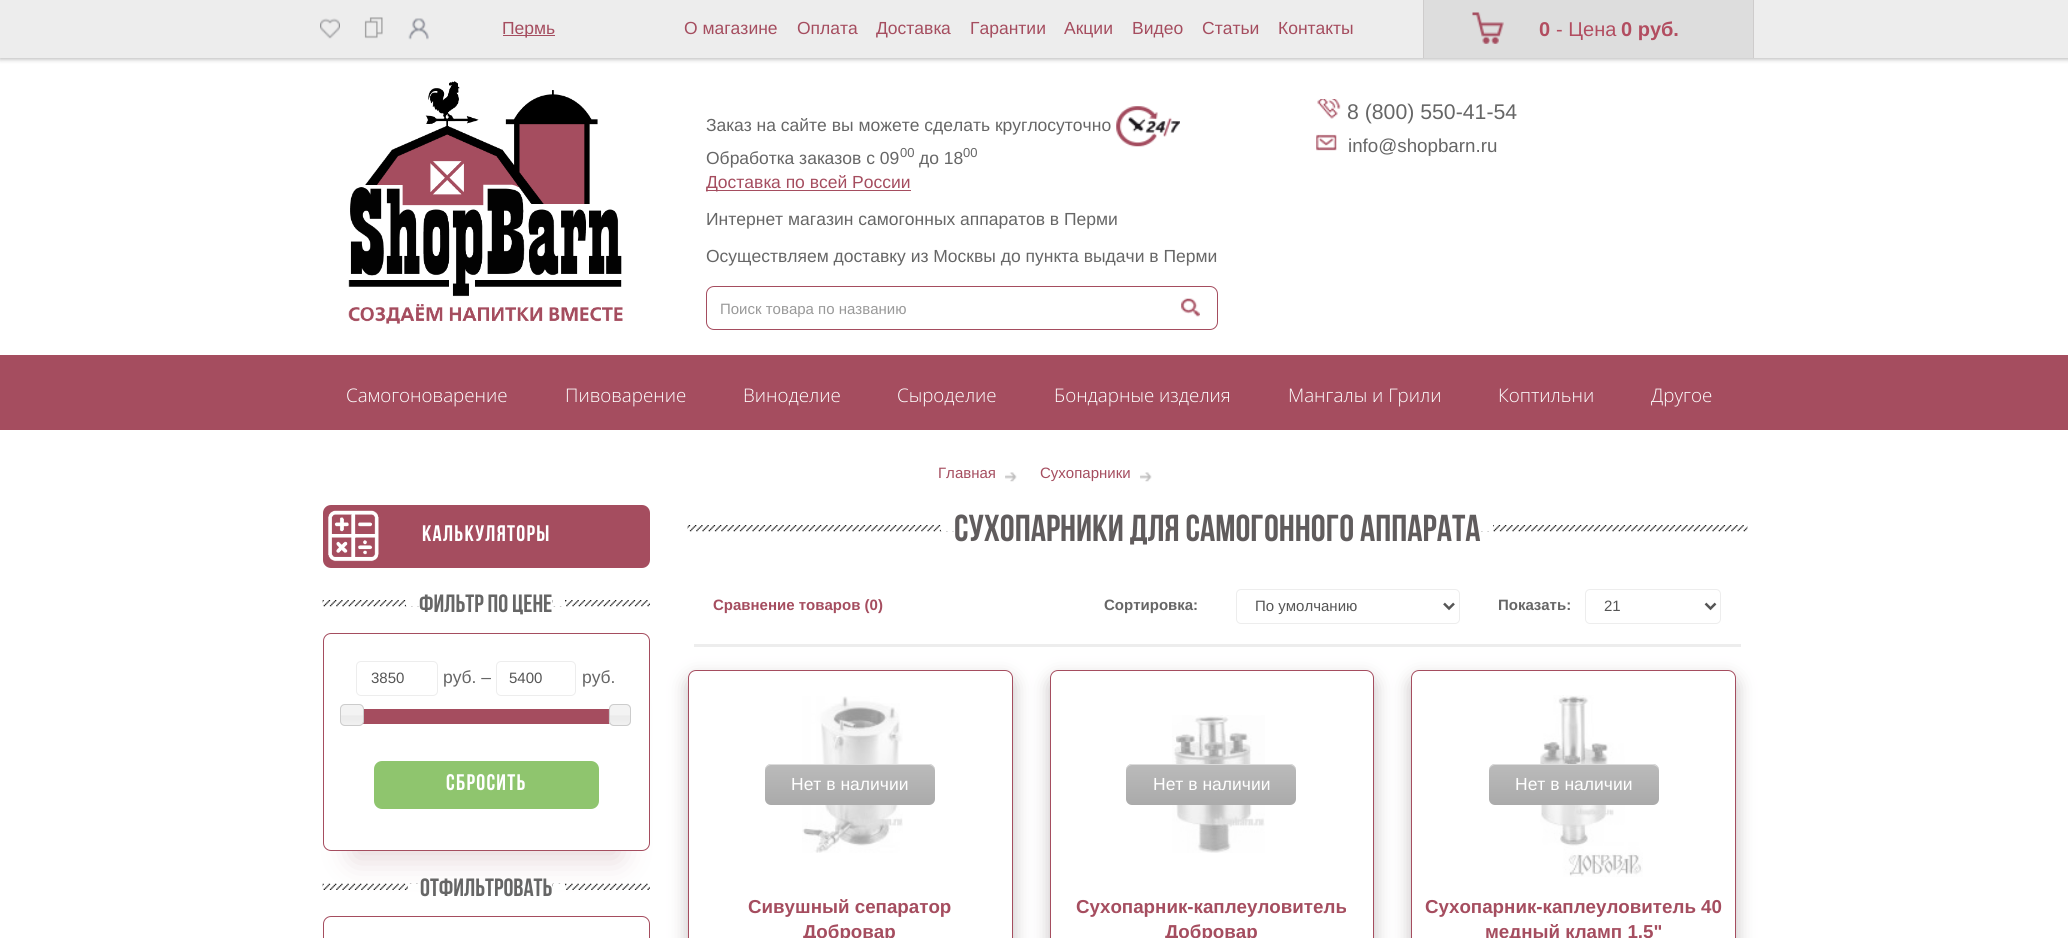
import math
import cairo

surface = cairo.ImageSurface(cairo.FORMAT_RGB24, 2068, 938)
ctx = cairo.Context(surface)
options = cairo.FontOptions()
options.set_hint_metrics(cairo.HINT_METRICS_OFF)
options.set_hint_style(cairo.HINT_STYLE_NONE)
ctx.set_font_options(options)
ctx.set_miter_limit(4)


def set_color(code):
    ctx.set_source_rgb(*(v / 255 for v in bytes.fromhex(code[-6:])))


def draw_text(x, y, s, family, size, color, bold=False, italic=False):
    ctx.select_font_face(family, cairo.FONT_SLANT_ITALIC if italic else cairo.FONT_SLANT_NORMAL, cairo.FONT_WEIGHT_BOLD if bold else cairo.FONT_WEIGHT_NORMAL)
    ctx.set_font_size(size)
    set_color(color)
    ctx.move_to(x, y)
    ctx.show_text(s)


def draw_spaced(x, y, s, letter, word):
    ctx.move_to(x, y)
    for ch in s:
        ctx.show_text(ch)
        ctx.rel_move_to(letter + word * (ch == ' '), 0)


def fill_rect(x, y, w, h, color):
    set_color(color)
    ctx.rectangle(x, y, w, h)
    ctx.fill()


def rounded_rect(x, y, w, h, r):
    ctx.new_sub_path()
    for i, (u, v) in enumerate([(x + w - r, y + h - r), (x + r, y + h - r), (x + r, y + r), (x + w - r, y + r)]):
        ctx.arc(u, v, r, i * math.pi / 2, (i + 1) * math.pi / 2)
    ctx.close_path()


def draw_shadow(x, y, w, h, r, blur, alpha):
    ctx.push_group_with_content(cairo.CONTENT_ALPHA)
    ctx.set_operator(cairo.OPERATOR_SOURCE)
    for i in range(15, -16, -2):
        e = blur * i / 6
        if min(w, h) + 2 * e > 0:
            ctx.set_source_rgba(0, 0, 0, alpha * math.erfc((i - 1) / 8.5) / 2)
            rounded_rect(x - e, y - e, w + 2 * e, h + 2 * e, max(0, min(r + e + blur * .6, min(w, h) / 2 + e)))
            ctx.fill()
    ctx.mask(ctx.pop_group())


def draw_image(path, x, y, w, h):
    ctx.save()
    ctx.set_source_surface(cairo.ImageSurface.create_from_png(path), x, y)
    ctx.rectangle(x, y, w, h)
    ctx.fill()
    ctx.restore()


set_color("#ffffff")
ctx.paint()
set_color("#000000")
draw_shadow(0, 1, 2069, 58, 0, 2.5, 0.3)
fill_rect(0, 0, 2068, 58, "#ededed")
draw_image("assets/img1.png", 320, 18, 20, 21)
draw_image("assets/img2.png", 364, 17, 19, 22)
draw_image("assets/img3.png", 408, 18, 21, 22)
fill_rect(503, 35, 52, 1, "#a54d5f")
draw_text(502, 34, "Пермь", "Liberation Sans", 17.5, "#a54d5f")
draw_text(684, 34, "О магазине", "Liberation Sans", 17.5, "#a54d5f")
draw_text(797, 34, "Оплата", "Liberation Sans", 17.5, "#a54d5f")
draw_text(876, 34, "Доставка", "Liberation Sans", 17.5, "#a54d5f")
draw_text(970, 34, "Гарантии", "Liberation Sans", 17.5, "#a54d5f")
draw_text(1064, 34, "Акции", "Liberation Sans", 17.5, "#a54d5f")
draw_text(1132, 34, "Видео", "Liberation Sans", 17.5, "#a54d5f")
draw_text(1202, 34, "Статьи", "Liberation Sans", 17.5, "#a54d5f")
draw_text(1278, 34, "Контакты", "Liberation Sans", 17.5, "#a54d5f")
fill_rect(1424, 0, 329, 58, "#dddddd")
fill_rect(1753, 0, 1, 58, "#cecccc")
fill_rect(1423, 0, 1, 58, "#cecccc")
draw_image("assets/img4.png", 1472, 12, 32, 32)
draw_text(1539, 36, "0", "Liberation Sans", 20, "#b24d60", bold=True)
draw_text(1556, 36, "- Цена", "Liberation Sans", 20, "#b24d60")
draw_text(1621, 36, "0 руб.", "Liberation Sans", 20, "#b24d60", bold=True)
draw_image("assets/img5.png", 348, 81, 275, 243)
draw_text(706, 131, "Заказ на сайте вы можете сделать круглосуточно", "Liberation Sans", 17.5, "#666666")
draw_image("assets/img6.png", 1116, 106, 64, 41)
draw_text(706, 164, "Обработка заказов с 09", "Liberation Sans", 17.5, "#666666")
draw_text(900, 157, "00", "Liberation Sans", 13, "#666666")
draw_text(919, 164, "до 18", "Liberation Sans", 17.5, "#666666")
draw_text(963, 157, "00", "Liberation Sans", 13, "#666666")
fill_rect(706, 190, 205, 1, "#a54d5f")
draw_text(706, 188, "Доставка по всей России", "Liberation Sans", 17.5, "#a54d5f")
draw_text(706, 225, "Интернет магазин самогонных аппаратов в Перми", "Liberation Sans", 17.5, "#666666")
draw_text(706, 262, "Осуществляем доставку из Москвы до пункта выдачи в Перми", "Liberation Sans", 17.5, "#666666")
rounded_rect(706.5, 286.5, 511, 43, 7.5)
set_color("#a54d5f")
ctx.set_line_width(1)
ctx.stroke()
draw_text(720, 314, "Поиск товара по названию", "Liberation Sans", 15, "#999999")
draw_image("assets/img7.png", 1181, 298, 19, 19)
draw_image("assets/img8.png", 1317, 99, 24, 20)
draw_text(1347, 119, "8 (800) 550-41-54", "Liberation Sans", 21.25, "#666666")
draw_image("assets/img9.png", 1316, 134, 21, 17)
draw_text(1348, 152, "info@shopbarn.ru", "Liberation Sans", 18.75, "#666666")
fill_rect(0, 355, 2068, 75, "#a54d5f")
draw_text(346, 402, "Самогоноварение", "Open Sans Light", 18.75, "#ffffff")
draw_text(565, 402, "Пивоварение", "Open Sans Light", 18.75, "#ffffff")
draw_text(743, 402, "Виноделие", "Open Sans Light", 18.75, "#ffffff")
draw_text(897, 402, "Сыроделие", "Open Sans Light", 18.75, "#ffffff")
draw_text(1054, 402, "Бондарные изделия", "Open Sans Light", 18.75, "#ffffff")
draw_text(1288, 402, "Мангалы и Грили", "Open Sans Light", 18.75, "#ffffff")
draw_text(1498, 402, "Коптильни", "Open Sans Light", 18.75, "#ffffff")
draw_text(1651, 402, "Другое", "Open Sans Light", 18.75, "#ffffff")
draw_text(938, 478, "Главная", "Liberation Sans", 15, "#a54d5f")
draw_image("assets/img10.png", 1005, 472, 12, 10)
draw_text(1040, 478, "Сухопарники", "Liberation Sans", 15, "#a54d5f")
draw_image("assets/img10.png", 1140, 472, 12, 10)
rounded_rect(323, 505, 327, 63, 8)
ctx.fill()
draw_image("assets/img11.png", 328, 510, 51, 52)
ctx.select_font_face("Bebas Neue", cairo.FONT_SLANT_NORMAL, cairo.FONT_WEIGHT_BOLD)
ctx.set_font_size(22.5)
set_color("#ffffff")
draw_spaced(422, 541, "КАЛЬКУЛЯТОРЫ", 1.25, 0)
draw_image("assets/img12.png", 322, 600, 97, 7)
fill_rect(406, 600, 13, 6, "#ffffff")
draw_text(419, 612, "Фильтр по цене", "Bebas Neue", 25, "#666666", bold=True)
draw_image("assets/img13.png", 552, 600, 98, 7)
fill_rect(553, 600, 12, 6, "#ffffff")
ctx.save()
ctx.set_fill_rule(cairo.FILL_RULE_EVEN_ODD)
ctx.new_path()
ctx.move_to(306, 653)
ctx.line_to(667, 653)
ctx.line_to(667, 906)
ctx.line_to(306, 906)
ctx.close_path()
ctx.move_to(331, 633)
ctx.line_to(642, 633)
ctx.curve_to(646.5, 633, 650, 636.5, 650, 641)
ctx.line_to(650, 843)
ctx.curve_to(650, 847.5, 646.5, 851, 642, 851)
ctx.line_to(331, 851)
ctx.curve_to(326.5, 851, 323, 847.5, 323, 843)
ctx.line_to(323, 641)
ctx.curve_to(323, 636.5, 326.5, 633, 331, 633)
ctx.close_path()
ctx.clip()
set_color("#e4d4d7")
draw_shadow(354, 701, 265, 157, 0, 15.5, 1)
ctx.restore()
rounded_rect(323.5, 633.5, 326, 217, 7.5)
set_color("#a54d5f")
ctx.stroke()
rounded_rect(356.5, 661.5, 81, 34, 4.5)
set_color("#ededed")
ctx.stroke()
draw_text(371, 683, "3850", "Liberation Sans", 15, "#555555")
draw_text(443, 683, "руб. –", "Liberation Sans", 17.5, "#666666")
rounded_rect(496.5, 661.5, 79, 34, 4.5)
set_color("#ededed")
ctx.stroke()
draw_text(509, 683, "5400", "Liberation Sans", 15, "#555555")
draw_text(582, 683, "руб.", "Liberation Sans", 17.5, "#666666")
ctx.rectangle(351.5, 709.5, 269, 14)
set_color("#a54d5f")
ctx.stroke()
fill_rect(363, 710, 247, 13, "#a54d5f")
draw_image("assets/img14.png", 340, 704, 24, 22)
rounded_rect(340.5, 704.5, 23, 21, 4.5)
set_color("#cccccc")
ctx.stroke()
draw_image("assets/img15.png", 608, 704, 23, 22)
rounded_rect(609.5, 704.5, 21, 21, 4.5)
ctx.stroke()
set_color("#8fc56e")
rounded_rect(374, 761, 225, 48, 8)
ctx.fill()
ctx.select_font_face("Bebas Neue", cairo.FONT_SLANT_NORMAL, cairo.FONT_WEIGHT_BOLD)
ctx.set_font_size(22.5)
set_color("#ffffff")
draw_spaced(446, 790, "Сбросить", 1.25, 0)
draw_image("assets/img16.png", 322, 883, 96, 7)
fill_rect(408, 884, 12, 6, "#ffffff")
draw_text(420, 896, "Отфильтровать", "Bebas Neue", 25, "#666666", bold=True)
draw_image("assets/img17.png", 552, 883, 98, 7)
fill_rect(553, 884, 12, 6, "#ffffff")
rounded_rect(323.5, 916.5, 326, 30, 7.5)
set_color("#a54d5f")
ctx.stroke()
draw_image("assets/img18.png", 687, 525, 267, 7)
fill_rect(941, 525, 13, 6, "#ffffff")
draw_text(954, 541, "СУХОПАРНИКИ ДЛЯ САМОГОННОГО АППАРАТА", "Bebas Neue", 37.5, "#605c5d", bold=True)
draw_image("assets/img19.png", 1481, 525, 267, 7)
fill_rect(1480, 525, 13, 6, "#ffffff")
fill_rect(694, 644, 1047, 3, "#ededed")
draw_text(713, 610, "Сравнение товаров (0)", "Liberation Sans", 15, "#a54d5f", bold=True)
draw_text(1104, 610, "Сортировка:", "Liberation Sans", 15, "#666666", bold=True)
rounded_rect(1236.5, 589.5, 223, 34, 4.5)
set_color("#ededed")
ctx.stroke()
ctx.new_path()
ctx.move_to(1444, 603.5)
ctx.line_to(1449, 608.5)
ctx.line_to(1454, 603.5)
set_color("#555555")
ctx.set_line_width(2.5)
ctx.stroke()
draw_text(1255, 611, "По умолчанию", "Liberation Sans", 15, "#555555")
draw_text(1498, 610, "Показать:", "Liberation Sans", 15, "#666666", bold=True)
rounded_rect(1585.5, 589.5, 135, 34, 4.5)
set_color("#ededed")
ctx.set_line_width(1)
ctx.stroke()
ctx.new_path()
ctx.move_to(1705.5, 603.5)
ctx.line_to(1710.5, 608.5)
ctx.line_to(1715.5, 603.5)
set_color("#555555")
ctx.set_line_width(2.5)
ctx.stroke()
draw_text(1604, 611, "21", "Liberation Sans", 15, "#555555")
ctx.save()
ctx.set_fill_rule(cairo.FILL_RULE_EVEN_ODD)
ctx.new_path()
ctx.move_to(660, 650)
ctx.line_to(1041, 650)
ctx.line_to(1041, 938)
ctx.line_to(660, 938)
ctx.close_path()
ctx.move_to(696, 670)
ctx.line_to(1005, 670)
ctx.curve_to(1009.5, 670, 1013, 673.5, 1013, 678)
ctx.line_to(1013, 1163)
ctx.curve_to(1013, 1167.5, 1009.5, 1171, 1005, 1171)
ctx.line_to(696, 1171)
ctx.curve_to(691.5, 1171, 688, 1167.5, 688, 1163)
ctx.line_to(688, 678)
ctx.curve_to(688, 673.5, 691.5, 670, 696, 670)
ctx.close_path()
ctx.clip()
set_color("#c5bfc0")
draw_shadow(688, 678, 325, 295, 8, 9, 1)
ctx.restore()
rounded_rect(688.5, 670.5, 324, 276, 7.5)
set_color("#a54d5f")
ctx.set_line_width(1)
ctx.stroke()
draw_image("assets/img20.png", 802, 696, 101, 157)
gradient = cairo.LinearGradient(850, 764, 850, 805)
gradient.add_color_stop_rgba(0, 0.733, 0.733, 0.733, 1)
gradient.add_color_stop_rgba(1, 0.667, 0.667, 0.667, 1)
ctx.set_source(gradient)
rounded_rect(765, 764, 170, 41, 6)
ctx.fill()
set_color("#dddddd")
ctx.new_path()
ctx.move_to(771, 765)
ctx.line_to(929, 765)
ctx.curve_to(932, 765, 935, 768, 935, 771)
ctx.line_to(935, 770)
ctx.curve_to(935, 767, 932, 764, 929, 764)
ctx.line_to(771, 764)
ctx.curve_to(768, 764, 765, 767, 765, 770)
ctx.line_to(765, 771)
ctx.curve_to(765, 768, 768, 765, 771, 765)
ctx.close_path()
ctx.fill()
draw_text(791, 790, "Нет в наличии", "Liberation Sans", 17.5, "#ffffff")
draw_text(748, 913, "Сивушный сепаратор", "Liberation Sans", 18.75, "#a54d5f", bold=True)
draw_text(803, 938, "Добровар", "Liberation Sans", 18.75, "#a54d5f", bold=True)
ctx.save()
ctx.set_fill_rule(cairo.FILL_RULE_EVEN_ODD)
ctx.new_path()
ctx.move_to(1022, 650)
ctx.line_to(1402, 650)
ctx.line_to(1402, 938)
ctx.line_to(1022, 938)
ctx.close_path()
ctx.move_to(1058, 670)
ctx.line_to(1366, 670)
ctx.curve_to(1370.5, 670, 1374, 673.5, 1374, 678)
ctx.line_to(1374, 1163)
ctx.curve_to(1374, 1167.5, 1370.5, 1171, 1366, 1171)
ctx.line_to(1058, 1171)
ctx.curve_to(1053.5, 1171, 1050, 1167.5, 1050, 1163)
ctx.line_to(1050, 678)
ctx.curve_to(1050, 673.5, 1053.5, 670, 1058, 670)
ctx.close_path()
ctx.clip()
set_color("#c5bfc0")
draw_shadow(1050, 678, 324, 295, 8, 9, 1)
ctx.restore()
rounded_rect(1050.5, 670.5, 323, 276, 7.5)
ctx.stroke()
draw_image("assets/img21.png", 1172, 715, 93, 138)
gradient = cairo.LinearGradient(1211, 764, 1211, 805)
gradient.add_color_stop_rgba(0, 0.733, 0.733, 0.733, 1)
gradient.add_color_stop_rgba(1, 0.667, 0.667, 0.667, 1)
ctx.set_source(gradient)
rounded_rect(1126, 764, 170, 41, 6)
ctx.fill()
set_color("#dddddd")
ctx.new_path()
ctx.move_to(1132, 765)
ctx.line_to(1290, 765)
ctx.curve_to(1293, 765, 1296, 768, 1296, 771)
ctx.line_to(1296, 770)
ctx.curve_to(1296, 767, 1293, 764, 1290, 764)
ctx.line_to(1132, 764)
ctx.curve_to(1129, 764, 1126, 767, 1126, 770)
ctx.line_to(1126, 771)
ctx.curve_to(1126, 768, 1129, 765, 1132, 765)
ctx.close_path()
ctx.fill()
draw_text(1153, 790, "Нет в наличии", "Liberation Sans", 17.5, "#ffffff")
draw_text(1076, 913, "Сухопарник-каплеуловитель", "Liberation Sans", 18.75, "#a54d5f", bold=True)
draw_text(1165, 938, "Добровар", "Liberation Sans", 18.75, "#a54d5f", bold=True)
ctx.save()
ctx.set_fill_rule(cairo.FILL_RULE_EVEN_ODD)
ctx.new_path()
ctx.move_to(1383, 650)
ctx.line_to(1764, 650)
ctx.line_to(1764, 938)
ctx.line_to(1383, 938)
ctx.close_path()
ctx.move_to(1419, 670)
ctx.line_to(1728, 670)
ctx.curve_to(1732.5, 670, 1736, 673.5, 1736, 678)
ctx.line_to(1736, 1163)
ctx.curve_to(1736, 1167.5, 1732.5, 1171, 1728, 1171)
ctx.line_to(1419, 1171)
ctx.curve_to(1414.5, 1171, 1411, 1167.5, 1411, 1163)
ctx.line_to(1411, 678)
ctx.curve_to(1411, 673.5, 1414.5, 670, 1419, 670)
ctx.close_path()
ctx.clip()
set_color("#c5bfc0")
draw_shadow(1411, 678, 325, 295, 8, 9, 1)
ctx.restore()
rounded_rect(1411.5, 670.5, 324, 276, 7.5)
ctx.stroke()
draw_image("assets/img22.png", 1540, 695, 103, 182)
gradient = cairo.LinearGradient(1574, 764, 1574, 805)
gradient.add_color_stop_rgba(0, 0.733, 0.733, 0.733, 1)
gradient.add_color_stop_rgba(1, 0.667, 0.667, 0.667, 1)
ctx.set_source(gradient)
rounded_rect(1489, 764, 170, 41, 6)
ctx.fill()
set_color("#dddddd")
ctx.new_path()
ctx.move_to(1495, 765)
ctx.line_to(1652, 765)
ctx.curve_to(1656, 765, 1659, 768, 1659, 771)
ctx.line_to(1659, 770)
ctx.curve_to(1659, 767, 1656, 764, 1653, 764)
ctx.line_to(1495, 764)
ctx.curve_to(1492, 764, 1489, 767, 1489, 770)
ctx.line_to(1489, 771)
ctx.curve_to(1489, 768, 1492, 765, 1495, 765)
ctx.close_path()
ctx.fill()
draw_text(1515, 790, "Нет в наличии", "Liberation Sans", 17.5, "#ffffff")
draw_text(1425, 913, "Сухопарник-каплеуловитель 40", "Liberation Sans", 18.75, "#a54d5f", bold=True)
draw_text(1485, 938, "медный кламп 1,5\"", "Liberation Sans", 18.75, "#a54d5f", bold=True)
surface.write_to_png("output.png")
